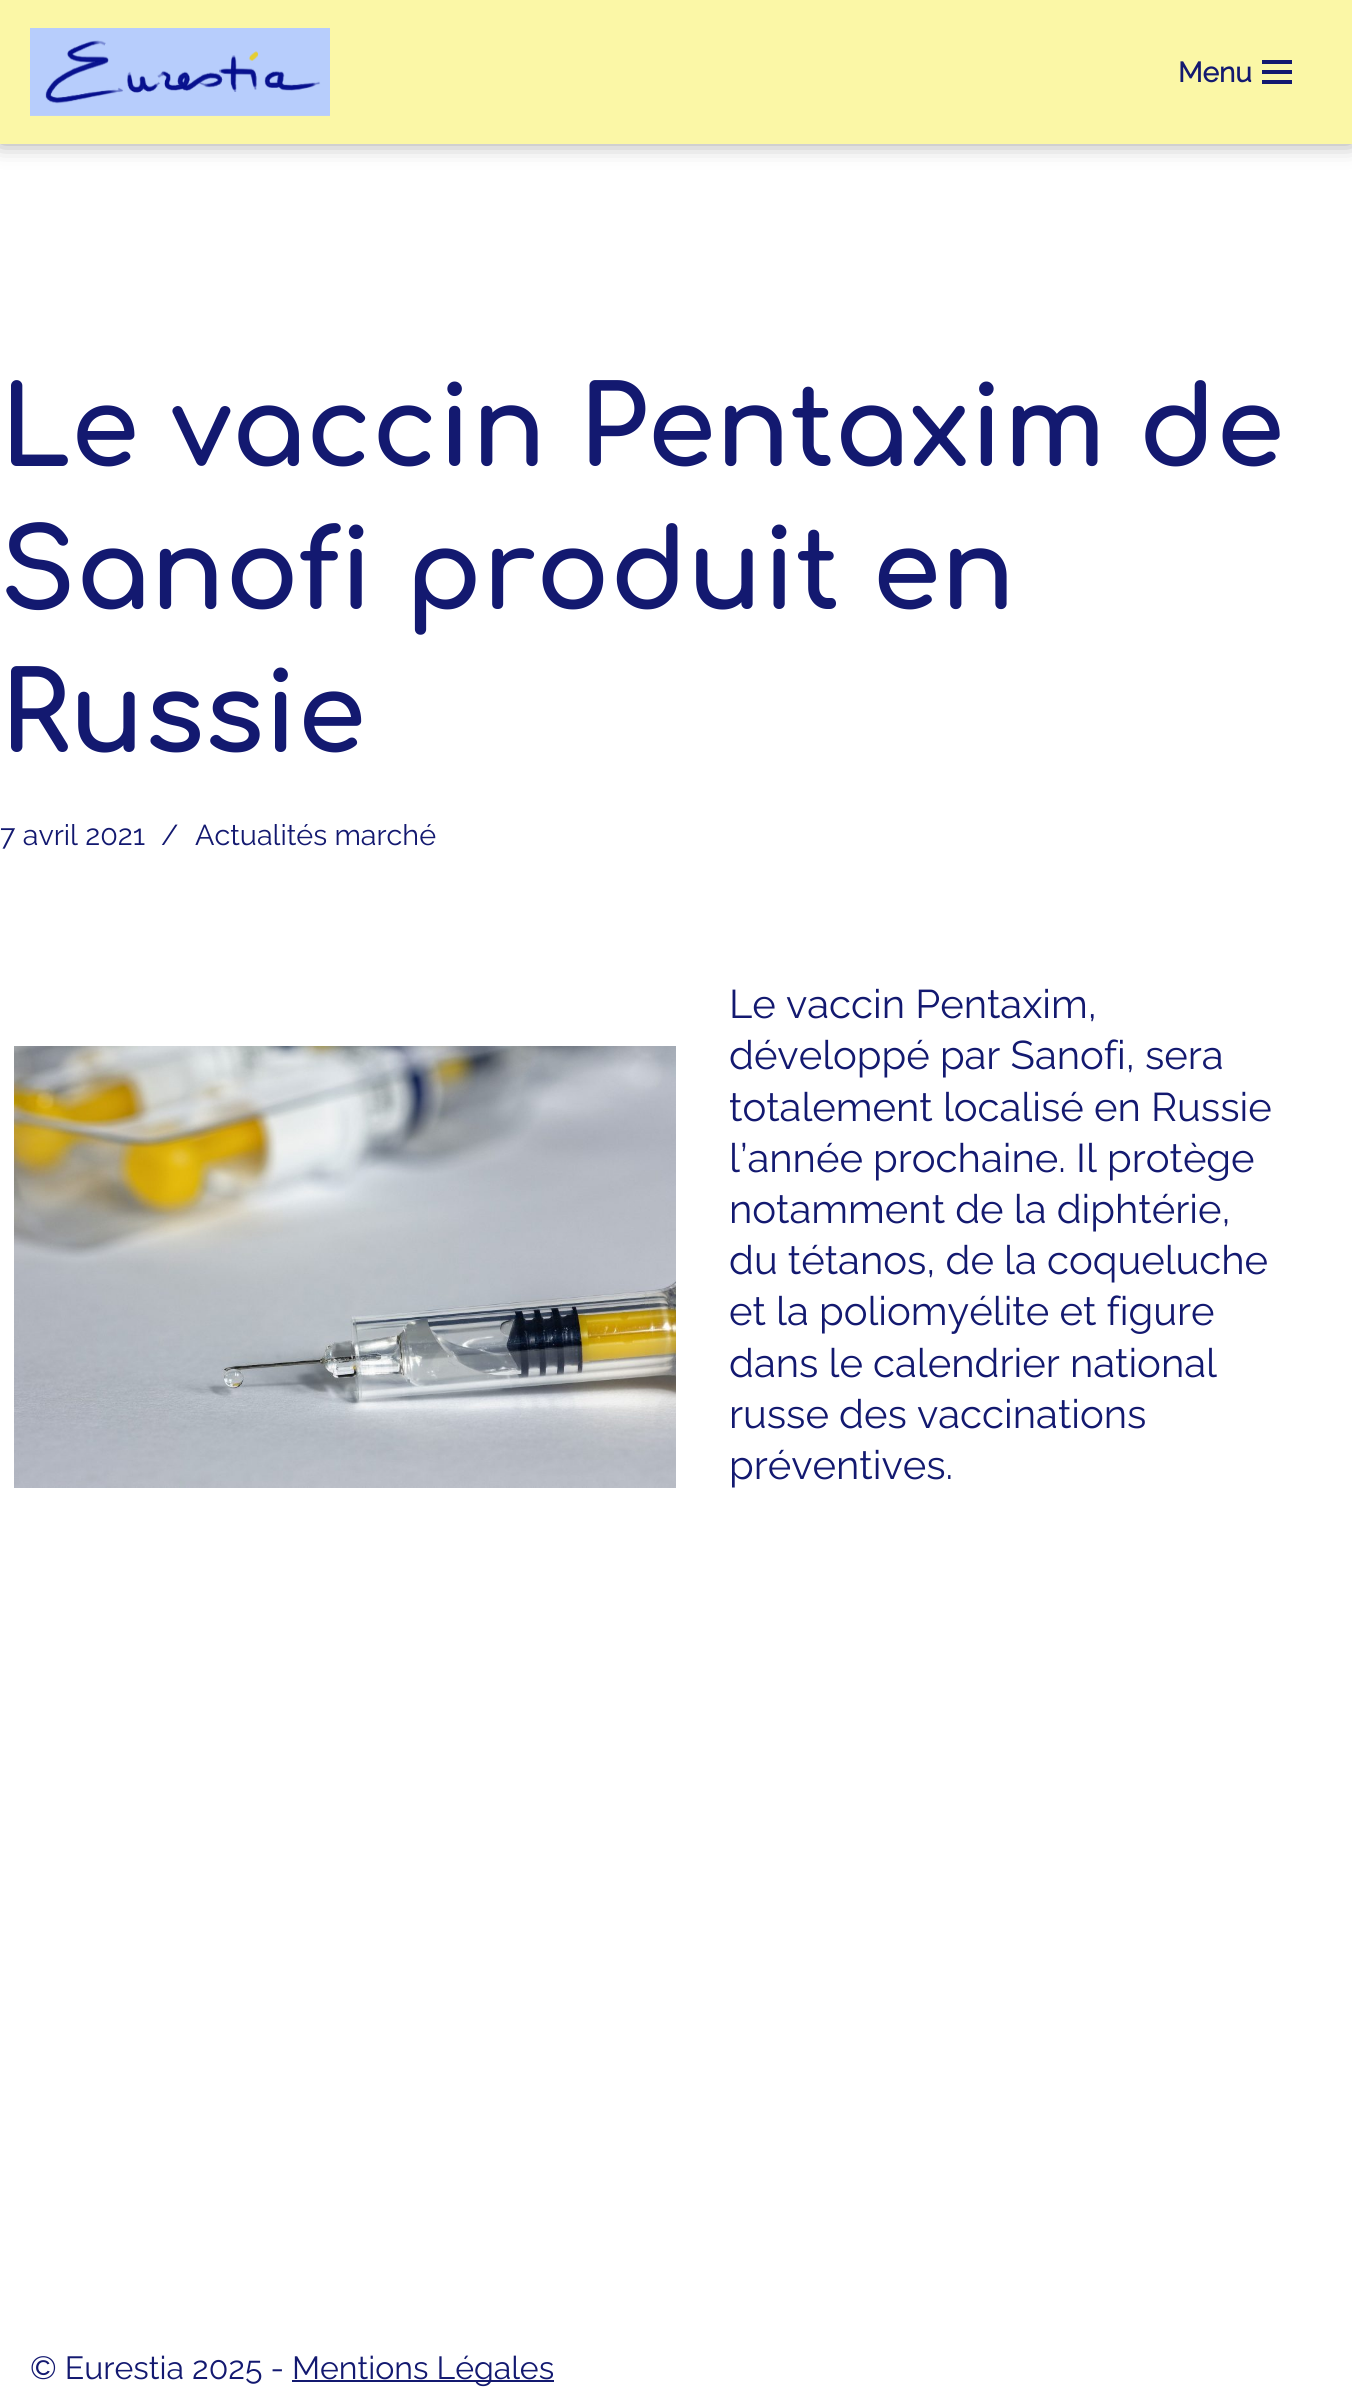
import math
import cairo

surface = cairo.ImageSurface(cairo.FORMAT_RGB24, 1352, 2402)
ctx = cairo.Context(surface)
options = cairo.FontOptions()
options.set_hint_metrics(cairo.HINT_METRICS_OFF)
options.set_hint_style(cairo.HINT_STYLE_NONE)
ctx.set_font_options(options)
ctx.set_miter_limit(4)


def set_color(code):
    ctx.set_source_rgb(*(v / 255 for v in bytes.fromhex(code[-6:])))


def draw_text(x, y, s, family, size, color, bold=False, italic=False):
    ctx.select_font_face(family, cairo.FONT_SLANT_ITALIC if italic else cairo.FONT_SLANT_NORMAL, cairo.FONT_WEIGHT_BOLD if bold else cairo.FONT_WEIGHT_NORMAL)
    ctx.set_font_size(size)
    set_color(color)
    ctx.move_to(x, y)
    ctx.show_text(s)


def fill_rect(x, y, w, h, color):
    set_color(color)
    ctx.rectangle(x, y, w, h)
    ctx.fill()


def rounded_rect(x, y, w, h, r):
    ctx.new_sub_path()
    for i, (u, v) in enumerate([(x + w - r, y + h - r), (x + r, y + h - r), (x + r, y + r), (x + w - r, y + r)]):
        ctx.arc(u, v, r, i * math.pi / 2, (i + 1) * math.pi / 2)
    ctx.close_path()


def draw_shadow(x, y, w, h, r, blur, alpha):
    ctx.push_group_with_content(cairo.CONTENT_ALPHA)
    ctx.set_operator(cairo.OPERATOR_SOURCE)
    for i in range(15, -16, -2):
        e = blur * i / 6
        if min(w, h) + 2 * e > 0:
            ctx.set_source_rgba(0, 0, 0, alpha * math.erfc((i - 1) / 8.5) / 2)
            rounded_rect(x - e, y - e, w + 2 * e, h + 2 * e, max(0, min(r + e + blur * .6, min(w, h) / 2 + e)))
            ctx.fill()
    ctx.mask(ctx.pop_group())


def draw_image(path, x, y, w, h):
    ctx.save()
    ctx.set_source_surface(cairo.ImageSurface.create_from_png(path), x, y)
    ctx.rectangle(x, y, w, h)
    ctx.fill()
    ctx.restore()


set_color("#ffffff")
ctx.paint()
set_color("#808080")
draw_shadow(0, -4, 1352, 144, 0, 12, 1)
fill_rect(0, 0, 1352, 144, "#fbf7a6")
draw_image("assets/img1.png", 30, 28, 300, 88)
draw_text(1178, 82, "Menu", "Raleway", 28, "#131970", bold=True)
fill_rect(1262, 60, 30, 4, "#131970")
fill_rect(1262, 70, 30, 4, "#131970")
fill_rect(1262, 80, 30, 4, "#131970")
draw_text(0, 466, "Le vaccin Pentaxim de", "Comfortaa", 110, "#131970", bold=True)
draw_text(0, 609, "Sanofi produit en", "Comfortaa", 110, "#131970", bold=True)
draw_text(0, 752, "Russie", "Comfortaa", 110, "#131970", bold=True)
draw_text(0, 845, "7 avril 2021", "Raleway Thin", 28.75, "#131970")
draw_text(161, 845, "/", "Raleway Thin", 28.75, "#131970")
draw_text(195, 845, "Actualités marché", "Raleway Thin", 28.75, "#131970")
draw_image("assets/img2.png", 14, 1046, 662, 442)
draw_text(729, 1018, "Le vaccin Pentaxim,", "Raleway Thin", 40, "#131970")
draw_text(729, 1069, "développé par Sanofi, sera", "Raleway Thin", 40, "#131970")
draw_text(729, 1121, "totalement localisé en Russie", "Raleway Thin", 40, "#131970")
draw_text(729, 1172, "l’année prochaine. Il protège", "Raleway Thin", 40, "#131970")
draw_text(729, 1223, "notamment de la diphtérie,", "Raleway Thin", 40, "#131970")
draw_text(729, 1274, "du tétanos, de la coqueluche", "Raleway Thin", 40, "#131970")
draw_text(729, 1325, "et la poliomyélite et figure", "Raleway Thin", 40, "#131970")
draw_text(729, 1377, "dans le calendrier national", "Raleway Thin", 40, "#131970")
draw_text(729, 1428, "russe des vaccinations", "Raleway Thin", 40, "#131970")
draw_text(729, 1479, "préventives.", "Raleway Thin", 40, "#131970")
draw_text(30, 2379, "© Eurestia 2025 -", "Raleway Thin", 32, "#131970")
fill_rect(292, 2380, 262, 2, "#131970")
draw_text(292, 2379, "Mentions Légales", "Raleway Thin", 32, "#131970")
surface.write_to_png("output.png")
